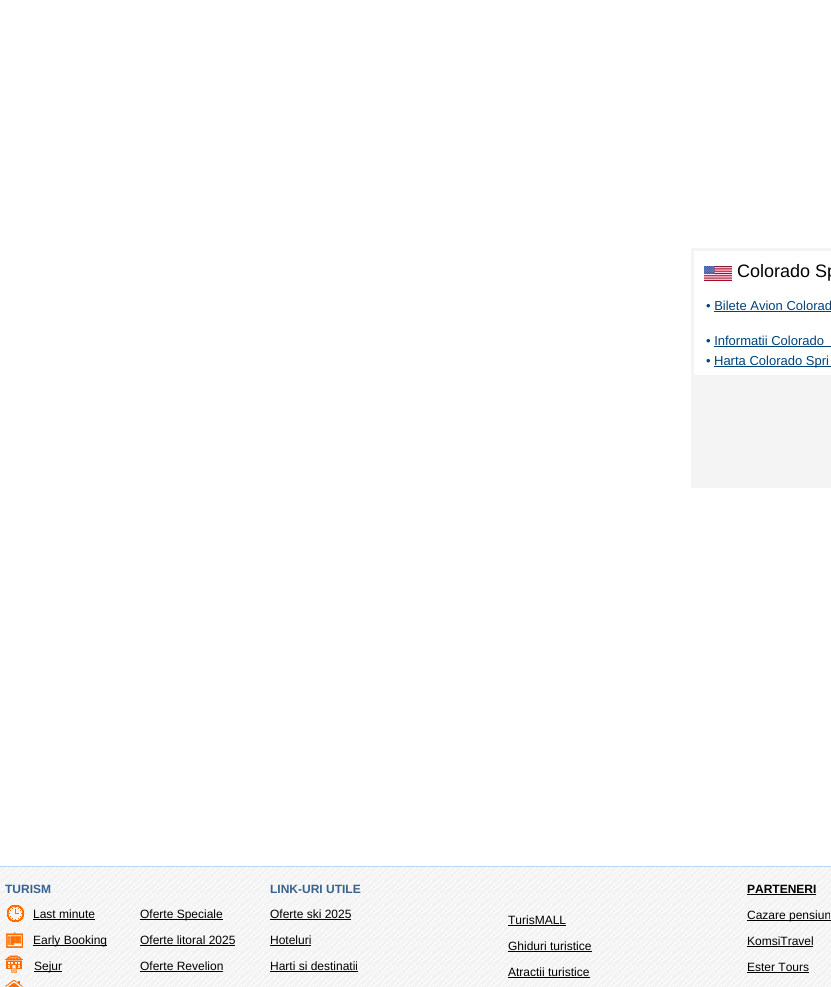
import math
import cairo

surface = cairo.ImageSurface(cairo.FORMAT_RGB24, 831, 987)
ctx = cairo.Context(surface)
options = cairo.FontOptions()
options.set_hint_metrics(cairo.HINT_METRICS_OFF)
options.set_hint_style(cairo.HINT_STYLE_NONE)
ctx.set_font_options(options)
ctx.set_miter_limit(4)


def set_color(code):
    ctx.set_source_rgb(*(v / 255 for v in bytes.fromhex(code[-6:])))


def draw_text(x, y, s, family, size, color, bold=False, italic=False):
    ctx.select_font_face(family, cairo.FONT_SLANT_ITALIC if italic else cairo.FONT_SLANT_NORMAL, cairo.FONT_WEIGHT_BOLD if bold else cairo.FONT_WEIGHT_NORMAL)
    ctx.set_font_size(size)
    set_color(color)
    ctx.move_to(x, y)
    ctx.show_text(s)


def fill_rect(x, y, w, h, color):
    set_color(color)
    ctx.rectangle(x, y, w, h)
    ctx.fill()


def draw_image(path, x, y, w, h):
    ctx.save()
    ctx.set_source_surface(cairo.ImageSurface.create_from_png(path), x, y)
    ctx.rectangle(x, y, w, h)
    ctx.fill()
    ctx.restore()


set_color("#ffffff")
ctx.paint()
ctx.rectangle(692.5, 249.5, 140, 237)
set_color("#f4f4f4")
ctx.set_line_width(3)
ctx.stroke()
draw_image("assets/img1.png", 704, 266, 28, 15)
draw_text(737, 277, "Colorado Sp", "Liberation Sans", 18, "#000000")
draw_text(706, 310, "• Bilete Avion Colorad", "Liberation Sans", 13, "#00427a")
fill_rect(714, 311, 117, 1, "#00427a")
draw_text(706, 345, "• Informatii Colorado", "Liberation Sans", 13, "#00427a")
fill_rect(714, 346, 117, 1, "#00427a")
draw_text(706, 365, "•", "Liberation Sans", 13, "#00427a")
fill_rect(714, 366, 117, 1, "#00427a")
draw_text(714, 365, "Harta Colorado Spri", "Liberation Sans", 13, "#00427a")
fill_rect(694, 375, 137, 110, "#f4f4f4")
draw_image("assets/img2.png", 0, 867, 831, 120)
fill_rect(0, 866, 831, 1, "#bad6f2")
draw_text(5, 893, "TURISM", "Liberation Sans", 12, "#37628f", bold=True)
draw_image("assets/img3.png", 5, 901, 28, 22)
draw_text(33, 918, "Last minute", "Liberation Sans", 12, "#000000")
fill_rect(33, 919, 62, 1, "#000000")
draw_image("assets/img4.png", 5, 927, 28, 22)
fill_rect(33, 945, 74, 1, "#000000")
draw_text(33, 944, "Early Booking", "Liberation Sans", 12, "#000000")
draw_image("assets/img5.png", 5, 953, 29, 20)
fill_rect(34, 971, 28, 1, "#000000")
draw_text(34, 970, "Sejur", "Liberation Sans", 12, "#000000")
draw_image("assets/img6.png", 5, 979, 29, 8)
fill_rect(140, 919, 83, 1, "#000000")
draw_text(140, 918, "Oferte Speciale", "Liberation Sans", 12, "#000000")
draw_text(140, 944, "Oferte litoral 2025", "Liberation Sans", 12, "#000000")
fill_rect(140, 945, 95, 1, "#000000")
draw_text(140, 970, "Oferte Revelion", "Liberation Sans", 12, "#000000")
fill_rect(140, 971, 83, 1, "#000000")
draw_text(270, 893, "LINK-URI UTILE", "Liberation Sans", 12, "#37628f", bold=True)
draw_text(270, 918, "Oferte ski 2025", "Liberation Sans", 12, "#000000")
fill_rect(270, 919, 81, 1, "#000000")
draw_text(270, 944, "Hoteluri", "Liberation Sans", 12, "#000000")
fill_rect(270, 945, 41, 1, "#000000")
draw_text(270, 970, "Harti si destinatii", "Liberation Sans", 12, "#000000")
fill_rect(270, 971, 88, 1, "#000000")
draw_text(508, 924, "TurisMALL", "Liberation Sans", 12, "#000000")
fill_rect(508, 925, 58, 1, "#000000")
draw_text(508, 950, "Ghiduri turistice", "Liberation Sans", 12, "#000000")
fill_rect(508, 951, 84, 1, "#000000")
draw_text(508, 976, "Atractii turistice", "Liberation Sans", 12, "#000000")
fill_rect(508, 977, 82, 1, "#000000")
draw_text(747, 893, "PARTENERI", "Liberation Sans", 12, "#000000", bold=True)
fill_rect(747, 894, 69, 1, "#000000")
fill_rect(747, 920, 84, 1, "#000000")
draw_text(747, 919, "Cazare pensiun", "Liberation Sans", 12, "#000000")
draw_text(747, 945, "KomsiTravel", "Liberation Sans", 12, "#000000")
fill_rect(747, 946, 66, 1, "#000000")
draw_text(747, 971, "Ester Tours", "Liberation Sans", 12, "#000000")
fill_rect(747, 972, 62, 1, "#000000")
surface.write_to_png("output.png")
